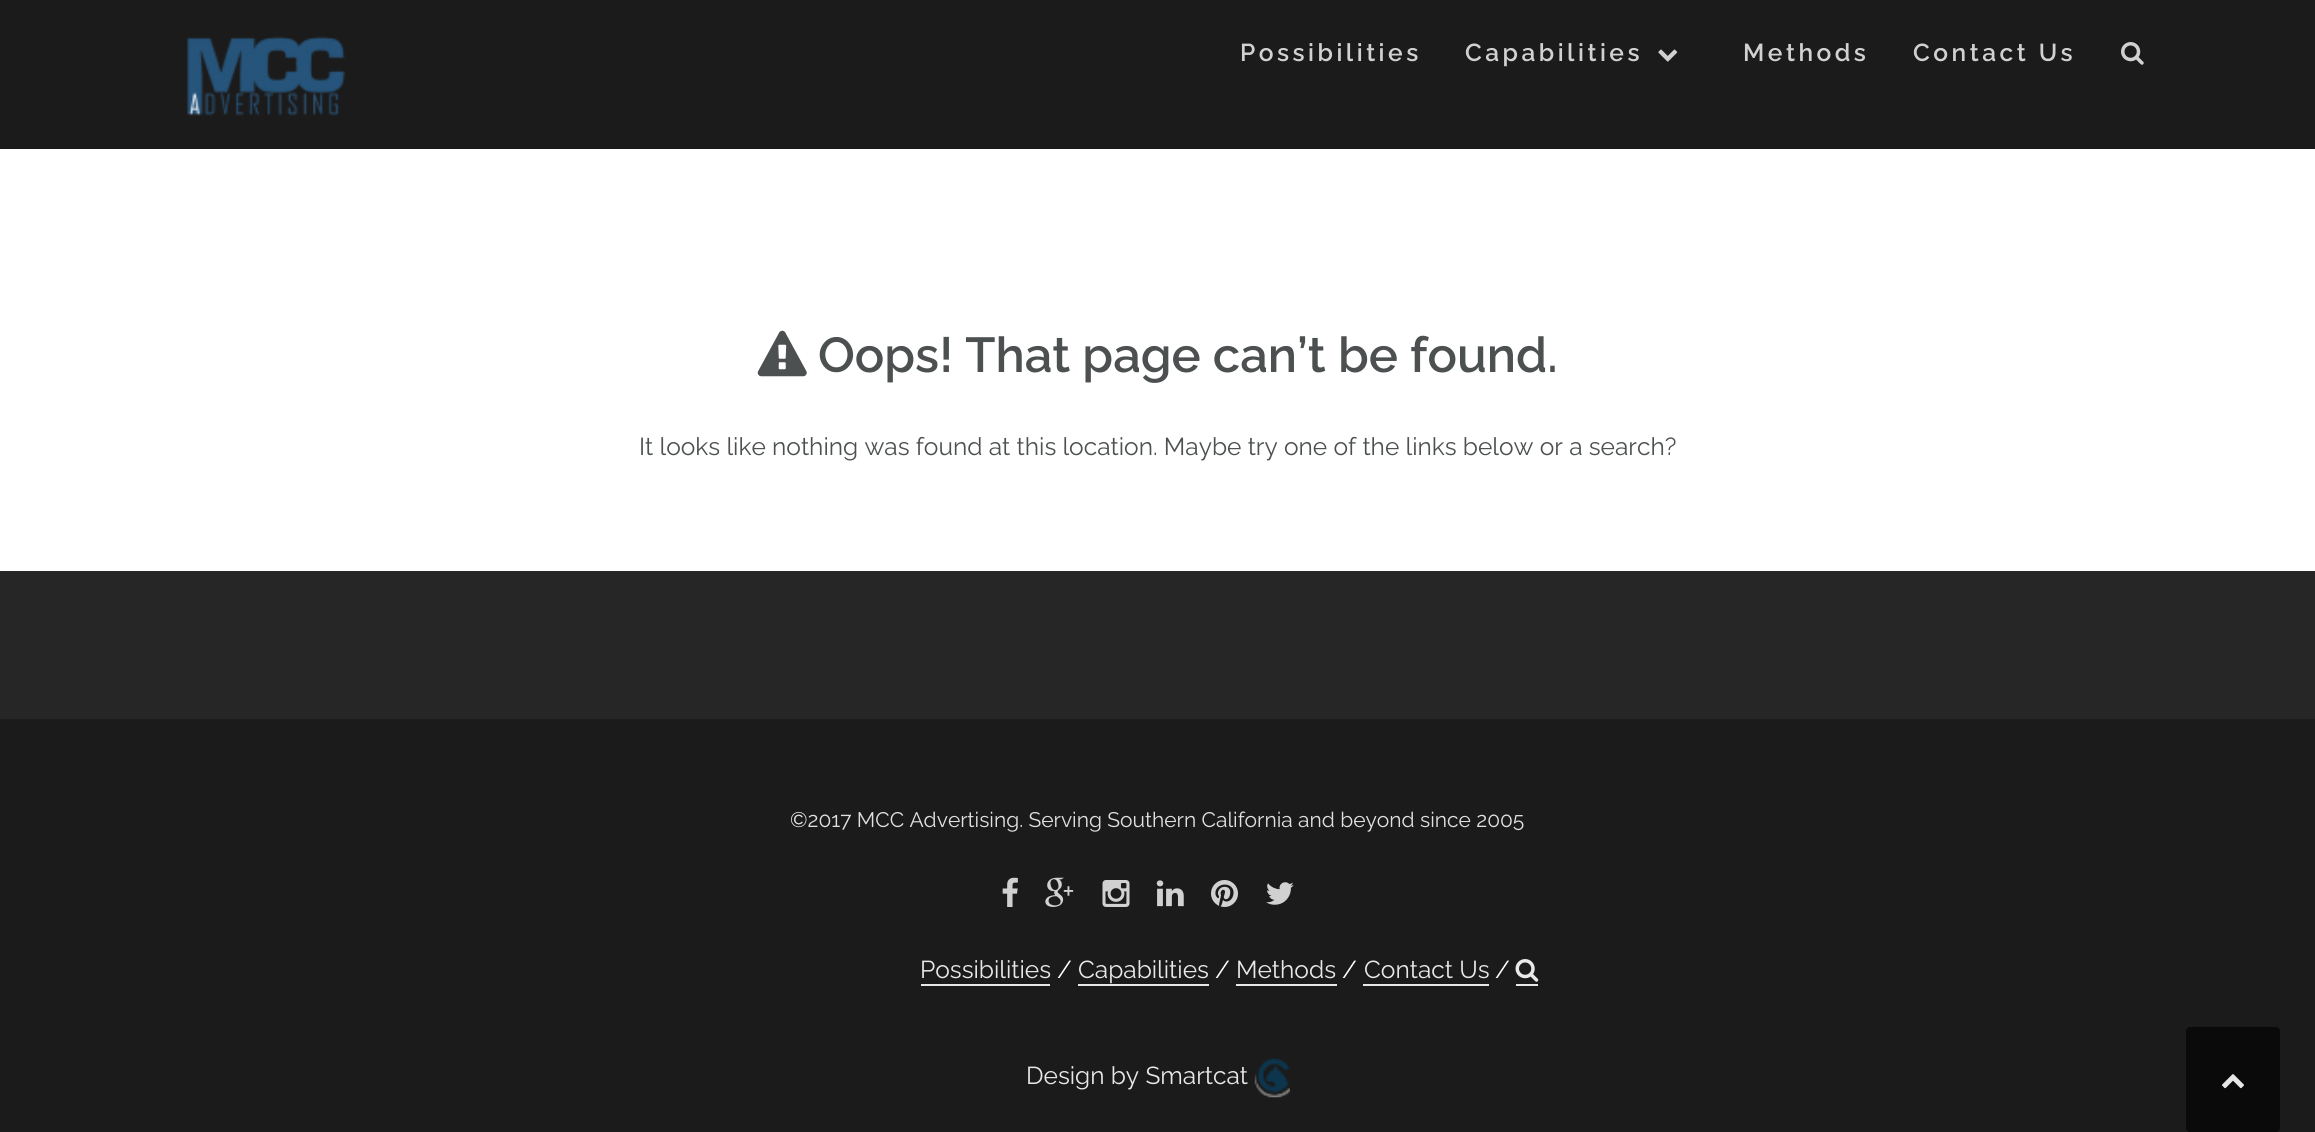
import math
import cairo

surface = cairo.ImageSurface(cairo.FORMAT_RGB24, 2315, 1132)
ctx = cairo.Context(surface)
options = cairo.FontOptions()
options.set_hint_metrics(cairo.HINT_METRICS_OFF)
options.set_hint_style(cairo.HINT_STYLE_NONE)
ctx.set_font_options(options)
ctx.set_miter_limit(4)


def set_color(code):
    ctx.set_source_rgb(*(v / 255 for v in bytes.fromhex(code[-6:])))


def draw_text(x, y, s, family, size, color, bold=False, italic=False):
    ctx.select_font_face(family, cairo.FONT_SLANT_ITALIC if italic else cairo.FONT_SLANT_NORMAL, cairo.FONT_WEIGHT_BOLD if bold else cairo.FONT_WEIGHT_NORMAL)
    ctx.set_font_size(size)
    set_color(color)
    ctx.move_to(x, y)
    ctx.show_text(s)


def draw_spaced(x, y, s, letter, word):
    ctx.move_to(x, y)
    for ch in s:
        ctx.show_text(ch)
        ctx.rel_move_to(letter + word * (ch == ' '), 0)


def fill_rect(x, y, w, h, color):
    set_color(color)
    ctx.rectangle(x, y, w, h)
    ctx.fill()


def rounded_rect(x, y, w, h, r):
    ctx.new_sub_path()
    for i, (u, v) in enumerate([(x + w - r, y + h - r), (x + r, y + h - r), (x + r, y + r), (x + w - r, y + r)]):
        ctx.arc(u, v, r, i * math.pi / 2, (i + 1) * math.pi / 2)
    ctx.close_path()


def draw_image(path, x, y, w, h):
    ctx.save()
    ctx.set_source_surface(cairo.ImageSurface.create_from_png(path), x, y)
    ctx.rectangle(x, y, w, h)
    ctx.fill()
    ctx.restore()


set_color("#ffffff")
ctx.paint()
fill_rect(0, 0, 2315, 149, "#1b1b1b")
draw_image("assets/img1.png", 186, 36, 160, 80)
ctx.select_font_face("Raleway SemiBold")
ctx.set_font_size(24.5)
set_color("#d1d1d1")
draw_spaced(1240, 61, "Possibilities", 3.5, 0)
draw_spaced(1465, 61, "Capabilities", 3.5, 0)
draw_image("assets/img2.png", 1658, 49, 20, 13)
draw_spaced(1743, 61, "Methods", 3.5, 0)
draw_spaced(1913, 61, "Contact Us", 3.5, 0)
draw_image("assets/img3.png", 2121, 42, 23, 23)
draw_image("assets/img4.png", 757, 330, 50, 47)
draw_text(818, 372, "Oops! That page can’t be found.", "Raleway SemiBold", 49, "#4d5051")
draw_text(639, 455, "It looks like nothing was found at this location. Maybe try one of the links below or a search?", "Raleway", 24.5, "#4d5051")
fill_rect(0, 571, 2315, 148, "#262626")
fill_rect(0, 719, 2315, 413, "#1b1b1b")
draw_text(790, 827, "©2017 MCC Advertising. Serving Southern California and beyond since 2005", "Raleway", 21, "#e1e1e1")
draw_image("assets/img5.png", 1002, 877, 16, 30)
draw_image("assets/img6.png", 1045, 877, 29, 30)
draw_image("assets/img7.png", 1102, 880, 28, 27)
draw_image("assets/img8.png", 1156, 880, 28, 27)
draw_image("assets/img9.png", 1211, 880, 27, 27)
draw_image("assets/img10.png", 1266, 882, 28, 23)
draw_text(920, 978, "Possibilities", "Raleway", 24.5, "#e8e8e8")
fill_rect(921, 984, 129, 2, "#e8e8e8")
draw_text(1057, 978, "/", "Raleway", 24.5, "#ffffff")
draw_text(1078, 978, "Capabilities", "Raleway", 24.5, "#e8e8e8")
fill_rect(1078, 984, 131, 2, "#e8e8e8")
draw_text(1215, 978, "/", "Raleway", 24.5, "#ffffff")
draw_text(1236, 978, "Methods", "Raleway", 24.5, "#e8e8e8")
fill_rect(1236, 984, 101, 2, "#e8e8e8")
draw_text(1342, 978, "/", "Raleway", 24.5, "#ffffff")
draw_text(1364, 978, "Contact Us", "Raleway", 24.5, "#e8e8e8")
fill_rect(1363, 984, 126, 2, "#e8e8e8")
draw_text(1495, 978, "/", "Raleway", 24.5, "#ffffff")
fill_rect(1516, 984, 22, 2, "#e8e8e8")
draw_image("assets/img11.png", 1515, 959, 24, 23)
draw_text(1026, 1084, "Design by Smartcat", "Raleway", 24.5, "#e8e8e8")
draw_image("assets/img12.png", 1254, 1058, 36, 40)
set_color("#0a0a0a")
rounded_rect(2186, 1027, 94, 105, 4)
ctx.fill()
draw_image("assets/img13.png", 2222, 1074, 22, 15)
surface.write_to_png("output.png")
